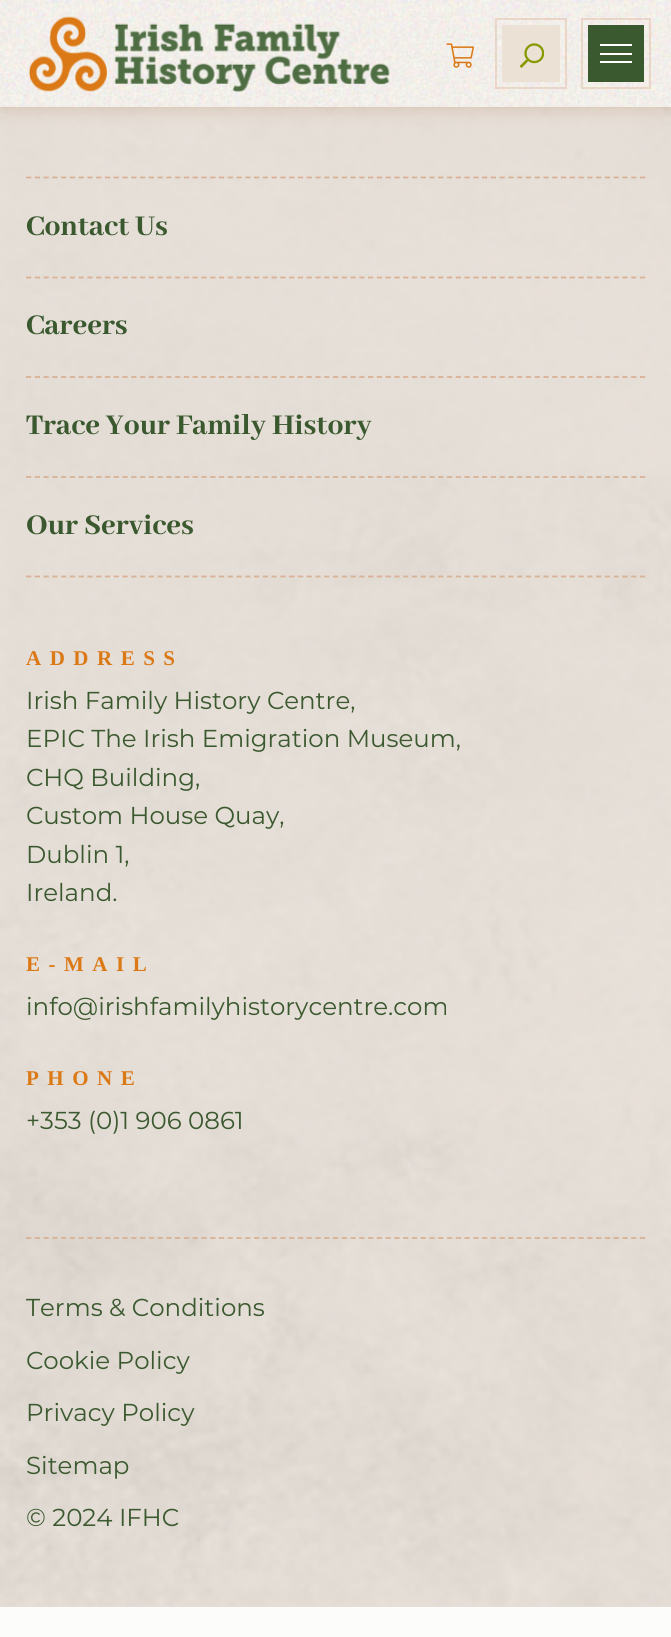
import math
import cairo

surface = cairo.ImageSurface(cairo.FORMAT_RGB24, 671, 1637)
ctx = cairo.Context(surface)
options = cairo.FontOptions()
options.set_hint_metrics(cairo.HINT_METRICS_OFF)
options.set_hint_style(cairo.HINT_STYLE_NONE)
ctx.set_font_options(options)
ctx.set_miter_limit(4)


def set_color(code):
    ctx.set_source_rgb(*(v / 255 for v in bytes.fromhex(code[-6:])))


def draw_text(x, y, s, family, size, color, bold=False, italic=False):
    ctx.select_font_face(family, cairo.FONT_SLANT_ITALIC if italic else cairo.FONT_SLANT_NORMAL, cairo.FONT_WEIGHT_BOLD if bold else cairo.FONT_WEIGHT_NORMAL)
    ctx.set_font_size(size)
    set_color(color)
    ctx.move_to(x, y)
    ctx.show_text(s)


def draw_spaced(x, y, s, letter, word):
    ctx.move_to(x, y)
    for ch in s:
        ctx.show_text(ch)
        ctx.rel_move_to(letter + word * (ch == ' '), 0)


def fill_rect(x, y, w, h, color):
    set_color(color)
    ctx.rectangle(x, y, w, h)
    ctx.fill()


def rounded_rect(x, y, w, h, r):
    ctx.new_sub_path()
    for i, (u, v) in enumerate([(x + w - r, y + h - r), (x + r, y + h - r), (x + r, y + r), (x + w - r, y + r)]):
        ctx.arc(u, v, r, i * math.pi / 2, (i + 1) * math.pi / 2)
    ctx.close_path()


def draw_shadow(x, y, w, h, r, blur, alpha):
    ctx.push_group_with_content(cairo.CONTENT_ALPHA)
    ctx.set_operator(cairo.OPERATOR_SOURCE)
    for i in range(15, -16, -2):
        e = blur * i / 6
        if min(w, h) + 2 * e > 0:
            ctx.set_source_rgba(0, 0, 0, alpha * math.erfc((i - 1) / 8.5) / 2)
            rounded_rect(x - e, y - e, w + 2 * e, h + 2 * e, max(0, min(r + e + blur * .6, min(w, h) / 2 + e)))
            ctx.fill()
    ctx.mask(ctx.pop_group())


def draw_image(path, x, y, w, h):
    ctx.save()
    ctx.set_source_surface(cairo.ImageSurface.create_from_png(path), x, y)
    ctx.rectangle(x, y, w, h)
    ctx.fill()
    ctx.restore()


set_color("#fcfcfb")
ctx.paint()
fill_rect(0, 107, 671, 1500, "#e8e0d7")
draw_image("assets/img5.png", 0, 107, 671, 1500)
set_color("#955a21")
draw_shadow(0, 4, 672, 106, 0, 9, 0.2)
draw_image("assets/img1.png", 0, 0, 671, 107)
draw_image("assets/img2.png", 29, 16, 361, 76)
draw_image("assets/img3.png", 446, 43, 28, 25)
fill_rect(502, 25, 58, 57, "#ebe1d5")
draw_image("assets/img4.png", 520, 43, 24, 25)
ctx.rectangle(496, 19, 70, 69)
ctx.set_source_rgba(0.851, 0.694, 0.58, 0.4)
ctx.stroke()
fill_rect(588, 25, 56, 57, "#3b592f")
ctx.rectangle(582, 19, 68, 69)
ctx.set_source_rgba(0.851, 0.694, 0.58, 0.4)
ctx.stroke()
fill_rect(600, 44, 32, 2, "#ffffff")
fill_rect(600, 53, 32, 2, "#ffffff")
fill_rect(600, 61, 32, 2, "#ffffff")
ctx.new_path()
ctx.move_to(26, 177.5)
ctx.line_to(646, 177.5)
set_color("#d9b194")
ctx.set_line_width(1.8)
ctx.set_dash([5.25, 3.52])
ctx.stroke()
draw_text(26, 235, "Contact Us", "Abhaya Libre ExtraBold ExtraBold", 31.5, "#3b592f")
ctx.new_path()
ctx.move_to(26, 277.5)
ctx.line_to(646, 277.5)
set_color("#d9b194")
ctx.stroke()
draw_text(26, 334, "Careers", "Abhaya Libre ExtraBold ExtraBold", 31.5, "#3b592f")
ctx.new_path()
ctx.move_to(26, 377)
ctx.line_to(646, 377)
set_color("#d9b194")
ctx.stroke()
draw_text(26, 434, "Trace Your Family History", "Abhaya Libre ExtraBold ExtraBold", 31.5, "#3b592f")
ctx.new_path()
ctx.move_to(26, 477)
ctx.line_to(646, 477)
set_color("#d9b194")
ctx.stroke()
draw_text(26, 534, "Our Services", "Abhaya Libre ExtraBold ExtraBold", 31.5, "#3b592f")
ctx.new_path()
ctx.move_to(26, 576.5)
ctx.line_to(646, 576.5)
set_color("#d9b194")
ctx.stroke()
ctx.select_font_face("Liberation Serif", cairo.FONT_SLANT_NORMAL, cairo.FONT_WEIGHT_BOLD)
ctx.set_font_size(21)
set_color("#db7916")
draw_spaced(26, 665, "ADDRESS", 8.5, 0)
draw_text(26, 709, "Irish Family History Centre,", "Montserrat", 24.5, "#3b592f")
draw_text(26, 747, "EPIC The Irish Emigration Museum,", "Montserrat", 24.5, "#3b592f")
draw_text(26, 786, "CHQ Building,", "Montserrat", 24.5, "#3b592f")
draw_text(26, 824, "Custom House Quay,", "Montserrat", 24.5, "#3b592f")
draw_text(26, 863, "Dublin 1,", "Montserrat", 24.5, "#3b592f")
draw_text(26, 901, "Ireland.", "Montserrat", 24.5, "#3b592f")
ctx.select_font_face("Liberation Serif", cairo.FONT_SLANT_NORMAL, cairo.FONT_WEIGHT_BOLD)
ctx.set_font_size(21)
set_color("#db7916")
draw_spaced(26, 971, "E-MAIL", 8.5, 0)
draw_text(26, 1015, "info@irishfamilyhistorycentre.com", "Montserrat", 24.5, "#3b592f")
ctx.select_font_face("Liberation Serif", cairo.FONT_SLANT_NORMAL, cairo.FONT_WEIGHT_BOLD)
ctx.set_font_size(21)
set_color("#db7916")
draw_spaced(26, 1085, "PHONE", 8.5, 0)
draw_text(26, 1129, "+353 (0)1 906 0861", "Montserrat", 24.5, "#3b592f")
ctx.new_path()
ctx.move_to(26, 1238)
ctx.line_to(646, 1238)
set_color("#d9b194")
ctx.stroke()
draw_text(26, 1316, "Terms & Conditions", "Montserrat", 24.5, "#3b592f")
draw_text(26, 1369, "Cookie Policy", "Montserrat", 24.5, "#3b592f")
draw_text(26, 1421, "Privacy Policy", "Montserrat", 24.5, "#3b592f")
draw_text(26, 1474, "Sitemap", "Montserrat", 24.5, "#3b592f")
draw_text(26, 1526, "© 2024 IFHC", "Montserrat", 24.5, "#3b592f")
surface.write_to_png("output.png")
